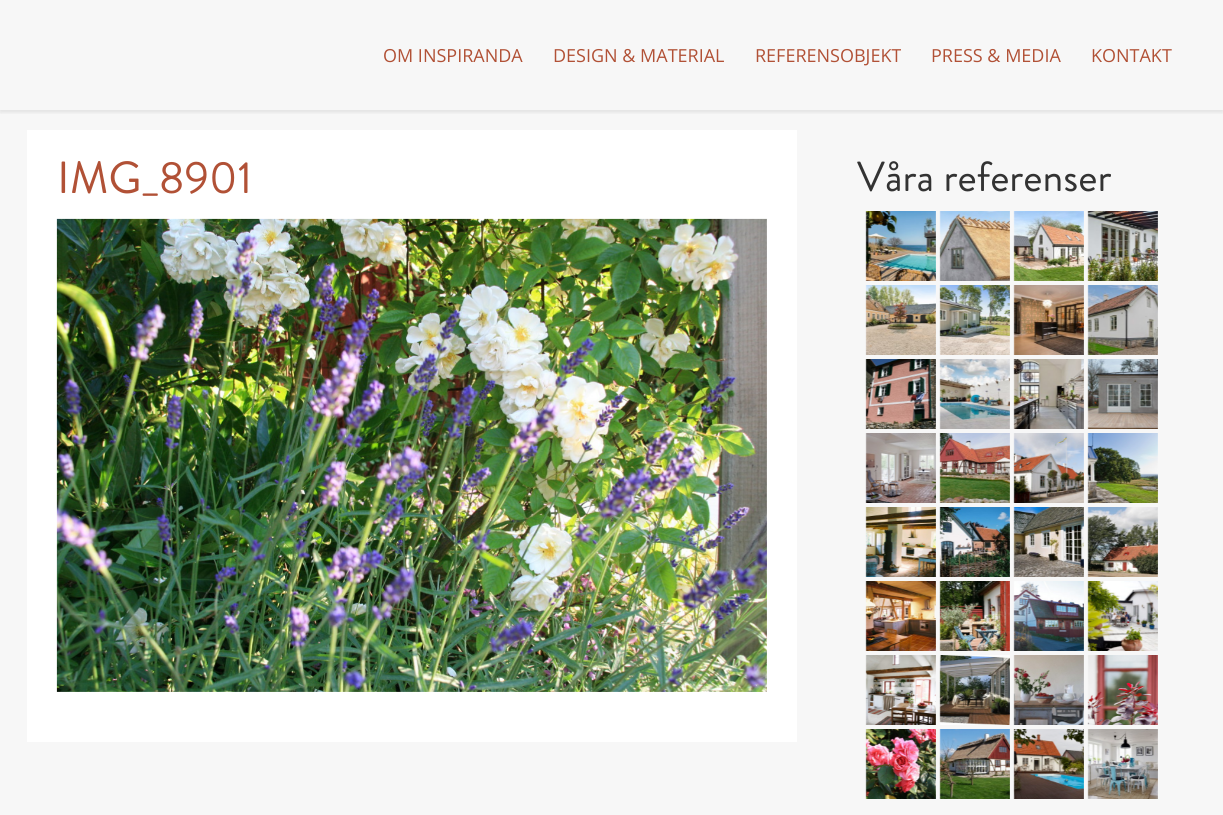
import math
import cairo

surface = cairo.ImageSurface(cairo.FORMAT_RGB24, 1223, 815)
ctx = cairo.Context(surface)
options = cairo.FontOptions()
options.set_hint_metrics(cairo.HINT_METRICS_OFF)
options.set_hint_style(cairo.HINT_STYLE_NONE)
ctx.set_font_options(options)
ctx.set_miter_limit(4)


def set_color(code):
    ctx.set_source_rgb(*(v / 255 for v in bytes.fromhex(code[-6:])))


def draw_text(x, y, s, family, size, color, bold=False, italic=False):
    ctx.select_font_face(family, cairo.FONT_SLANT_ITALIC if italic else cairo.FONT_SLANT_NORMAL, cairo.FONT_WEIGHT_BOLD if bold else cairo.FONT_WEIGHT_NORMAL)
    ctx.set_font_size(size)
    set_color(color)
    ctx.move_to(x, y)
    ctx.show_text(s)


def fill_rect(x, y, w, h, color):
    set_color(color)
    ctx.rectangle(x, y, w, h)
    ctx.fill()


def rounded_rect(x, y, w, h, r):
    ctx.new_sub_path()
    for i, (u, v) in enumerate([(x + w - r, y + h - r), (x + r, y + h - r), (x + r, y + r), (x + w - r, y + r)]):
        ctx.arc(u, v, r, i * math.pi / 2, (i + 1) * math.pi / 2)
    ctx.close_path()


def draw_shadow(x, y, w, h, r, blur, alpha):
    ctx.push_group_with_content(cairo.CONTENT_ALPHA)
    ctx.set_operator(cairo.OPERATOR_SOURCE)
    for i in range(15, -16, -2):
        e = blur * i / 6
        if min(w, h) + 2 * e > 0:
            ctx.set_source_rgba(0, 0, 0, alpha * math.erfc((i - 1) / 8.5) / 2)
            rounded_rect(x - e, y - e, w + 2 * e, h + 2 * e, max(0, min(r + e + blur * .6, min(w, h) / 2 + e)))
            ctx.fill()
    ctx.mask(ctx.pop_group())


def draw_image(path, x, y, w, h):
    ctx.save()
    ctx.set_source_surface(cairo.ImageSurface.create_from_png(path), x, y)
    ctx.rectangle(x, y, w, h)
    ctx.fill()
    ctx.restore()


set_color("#f7f7f7")
ctx.paint()
ctx.save()
ctx.rectangle(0, 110, 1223, 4)
ctx.clip()
set_color("#000000")
draw_shadow(0, 2, 1223, 110, 0, 2.5, 0.1)
ctx.restore()
draw_text(383, 62, "OM INSPIRANDA", "Open Sans", 18, "#b15136")
draw_text(553, 62, "DESIGN & MATERIAL", "Open Sans", 18, "#b15136")
draw_text(755, 62, "REFERENSOBJEKT", "Open Sans", 18, "#b15136")
draw_text(931, 62, "PRESS & MEDIA", "Open Sans", 18, "#b15136")
draw_text(1091, 62, "KONTAKT", "Open Sans", 18, "#b15136")
fill_rect(27, 130, 770, 612, "#ffffff")
draw_text(57, 193, "IMG_8901", "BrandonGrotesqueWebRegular", 45, "#b15136")
draw_image("assets/img1.png", 56, 218, 711, 474)
draw_text(857, 191, "Våra referenser", "BrandonGrotesqueWebRegular", 42, "#333333")
draw_image("assets/img2.png", 865, 211, 71, 70)
draw_image("assets/img3.png", 939, 211, 71, 70)
draw_image("assets/img4.png", 1013, 211, 71, 70)
draw_image("assets/img5.png", 1087, 211, 71, 70)
draw_image("assets/img6.png", 865, 285, 71, 70)
draw_image("assets/img7.png", 939, 285, 71, 70)
draw_image("assets/img8.png", 1013, 285, 71, 70)
draw_image("assets/img9.png", 1087, 285, 71, 70)
draw_image("assets/img10.png", 865, 359, 71, 70)
draw_image("assets/img11.png", 939, 359, 71, 70)
draw_image("assets/img12.png", 1013, 359, 71, 70)
draw_image("assets/img13.png", 1087, 359, 71, 70)
draw_image("assets/img14.png", 865, 433, 71, 70)
draw_image("assets/img15.png", 939, 433, 71, 70)
draw_image("assets/img16.png", 1013, 433, 71, 70)
draw_image("assets/img17.png", 1087, 433, 71, 70)
draw_image("assets/img18.png", 865, 507, 71, 70)
draw_image("assets/img19.png", 939, 507, 71, 70)
draw_image("assets/img20.png", 1013, 507, 71, 70)
draw_image("assets/img21.png", 1087, 507, 71, 70)
draw_image("assets/img22.png", 865, 581, 71, 70)
draw_image("assets/img23.png", 939, 581, 71, 70)
draw_image("assets/img24.png", 1013, 581, 71, 70)
draw_image("assets/img25.png", 1087, 581, 71, 70)
draw_image("assets/img26.png", 865, 655, 71, 70)
draw_image("assets/img27.png", 939, 655, 71, 70)
draw_image("assets/img28.png", 1013, 655, 71, 70)
draw_image("assets/img29.png", 1087, 655, 71, 70)
draw_image("assets/img30.png", 865, 729, 71, 70)
draw_image("assets/img31.png", 939, 729, 71, 70)
draw_image("assets/img32.png", 1013, 729, 71, 70)
draw_image("assets/img33.png", 1087, 729, 71, 70)
surface.write_to_png("output.png")
